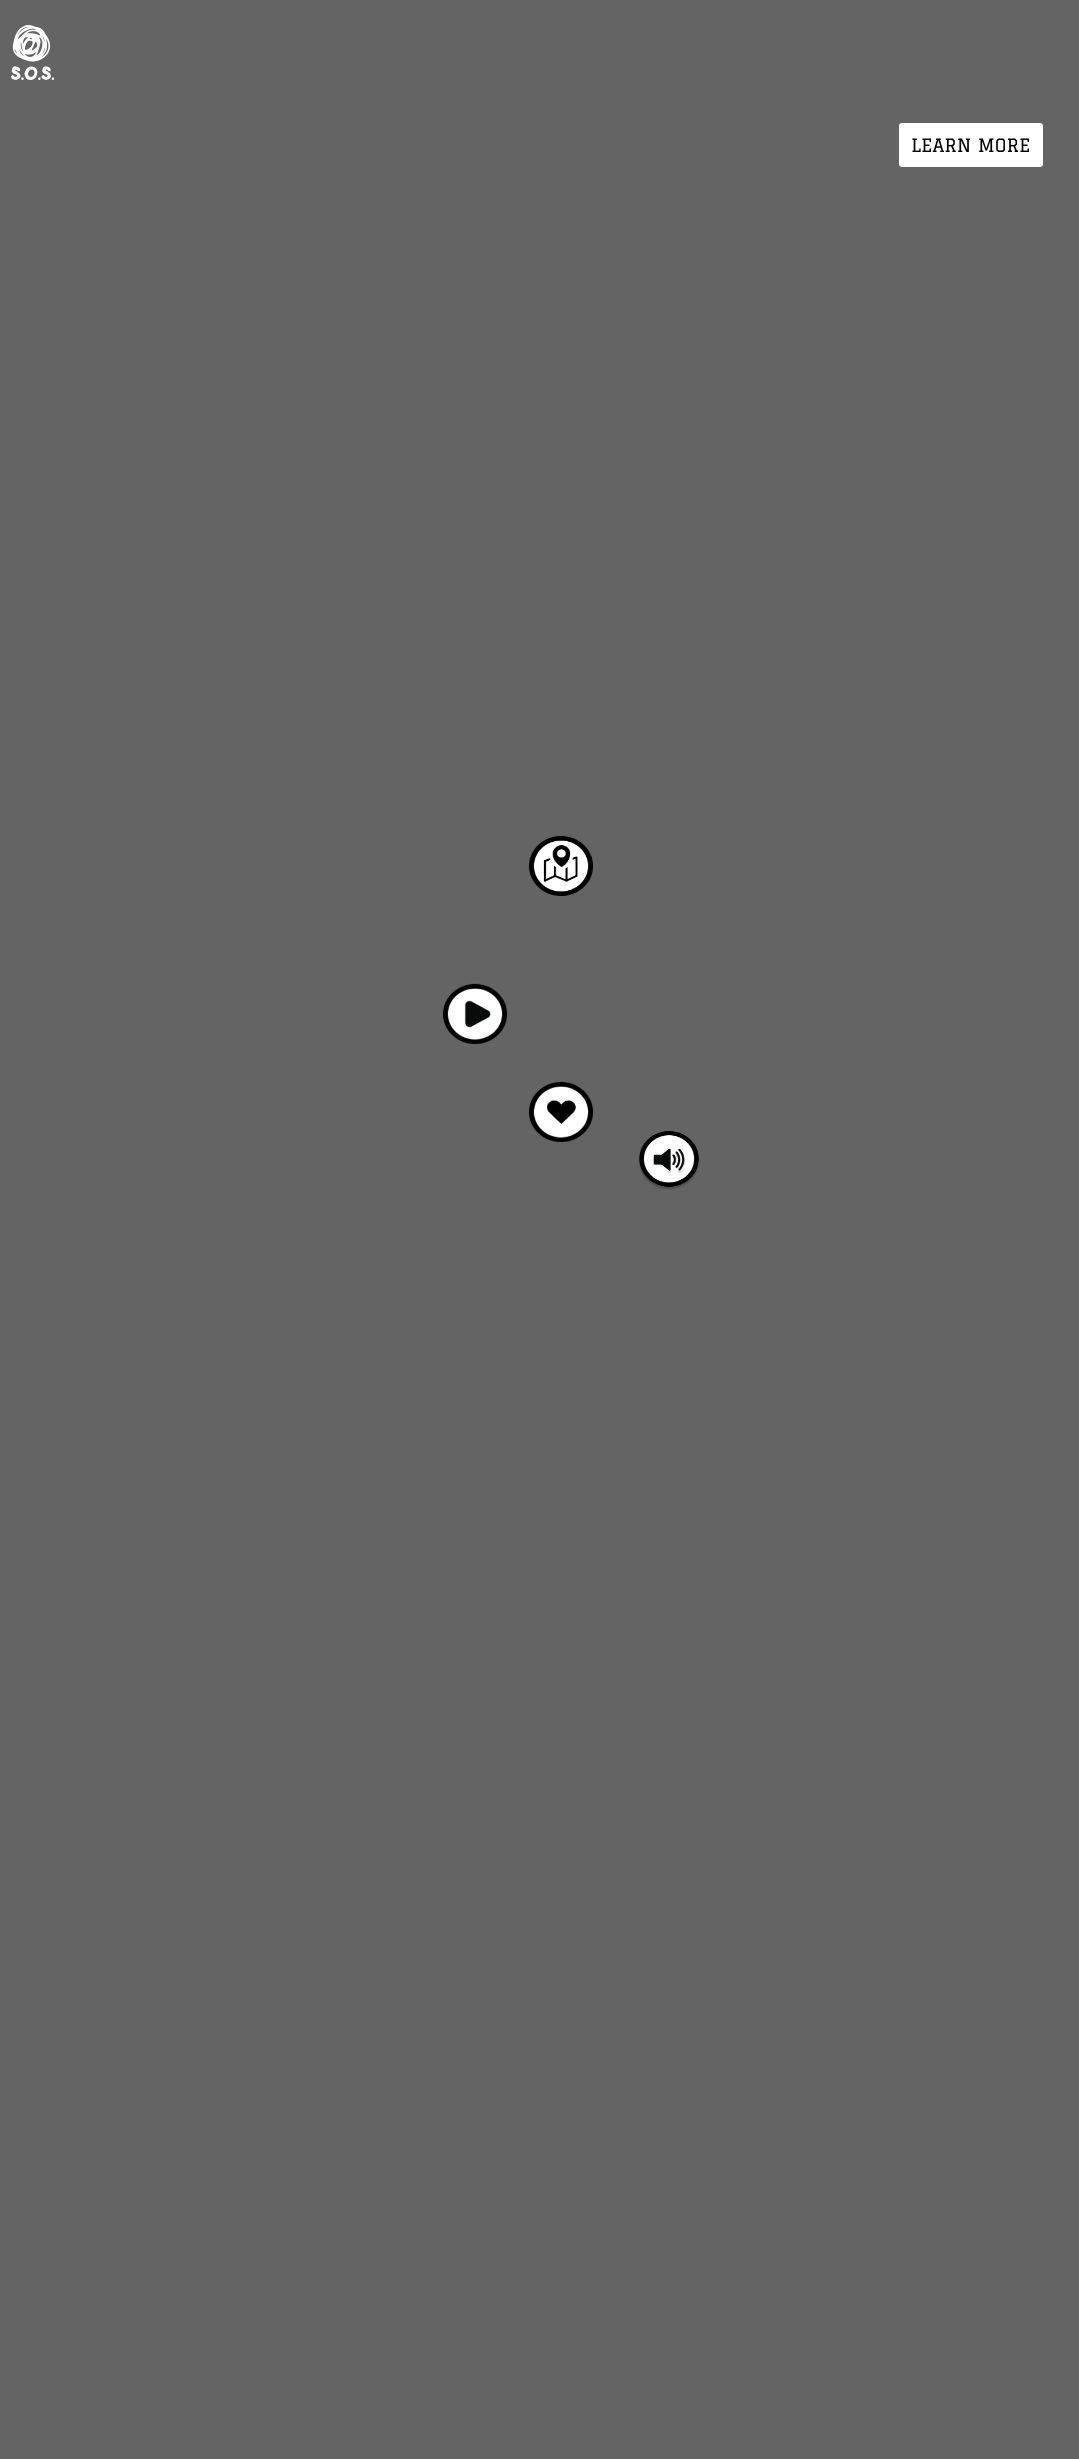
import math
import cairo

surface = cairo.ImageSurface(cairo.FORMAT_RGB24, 1079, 2459)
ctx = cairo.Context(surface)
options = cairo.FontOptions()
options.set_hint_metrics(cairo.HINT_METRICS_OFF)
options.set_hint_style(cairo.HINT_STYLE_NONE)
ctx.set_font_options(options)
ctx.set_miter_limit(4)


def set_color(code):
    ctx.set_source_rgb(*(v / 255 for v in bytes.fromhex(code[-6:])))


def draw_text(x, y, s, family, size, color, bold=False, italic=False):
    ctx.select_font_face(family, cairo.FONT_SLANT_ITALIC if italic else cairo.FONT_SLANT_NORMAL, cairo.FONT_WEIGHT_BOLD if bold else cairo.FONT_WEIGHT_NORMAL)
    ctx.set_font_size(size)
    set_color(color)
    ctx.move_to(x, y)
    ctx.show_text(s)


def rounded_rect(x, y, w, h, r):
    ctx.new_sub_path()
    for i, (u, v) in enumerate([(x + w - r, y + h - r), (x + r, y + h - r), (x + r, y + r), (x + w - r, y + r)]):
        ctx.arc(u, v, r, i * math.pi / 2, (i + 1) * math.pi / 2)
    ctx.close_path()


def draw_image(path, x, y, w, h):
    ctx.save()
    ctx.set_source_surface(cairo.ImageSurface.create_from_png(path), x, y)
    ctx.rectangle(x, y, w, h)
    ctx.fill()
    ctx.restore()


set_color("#646464")
ctx.paint()
draw_image("assets/img1.png", 11, 25, 43, 55)
draw_image("assets/img2.png", 529, 836, 64, 60)
draw_image("assets/img3.png", 443, 983, 64, 61)
draw_image("assets/img4.png", 529, 1081, 64, 61)
draw_image("assets/img5.png", 638, 1131, 62, 59)
set_color("#ffffff")
rounded_rect(899, 123, 144, 44, 3)
ctx.fill()
draw_text(911, 152, "LEARN MORE", "Graduate", 18, "#000000")
surface.write_to_png("output.png")
